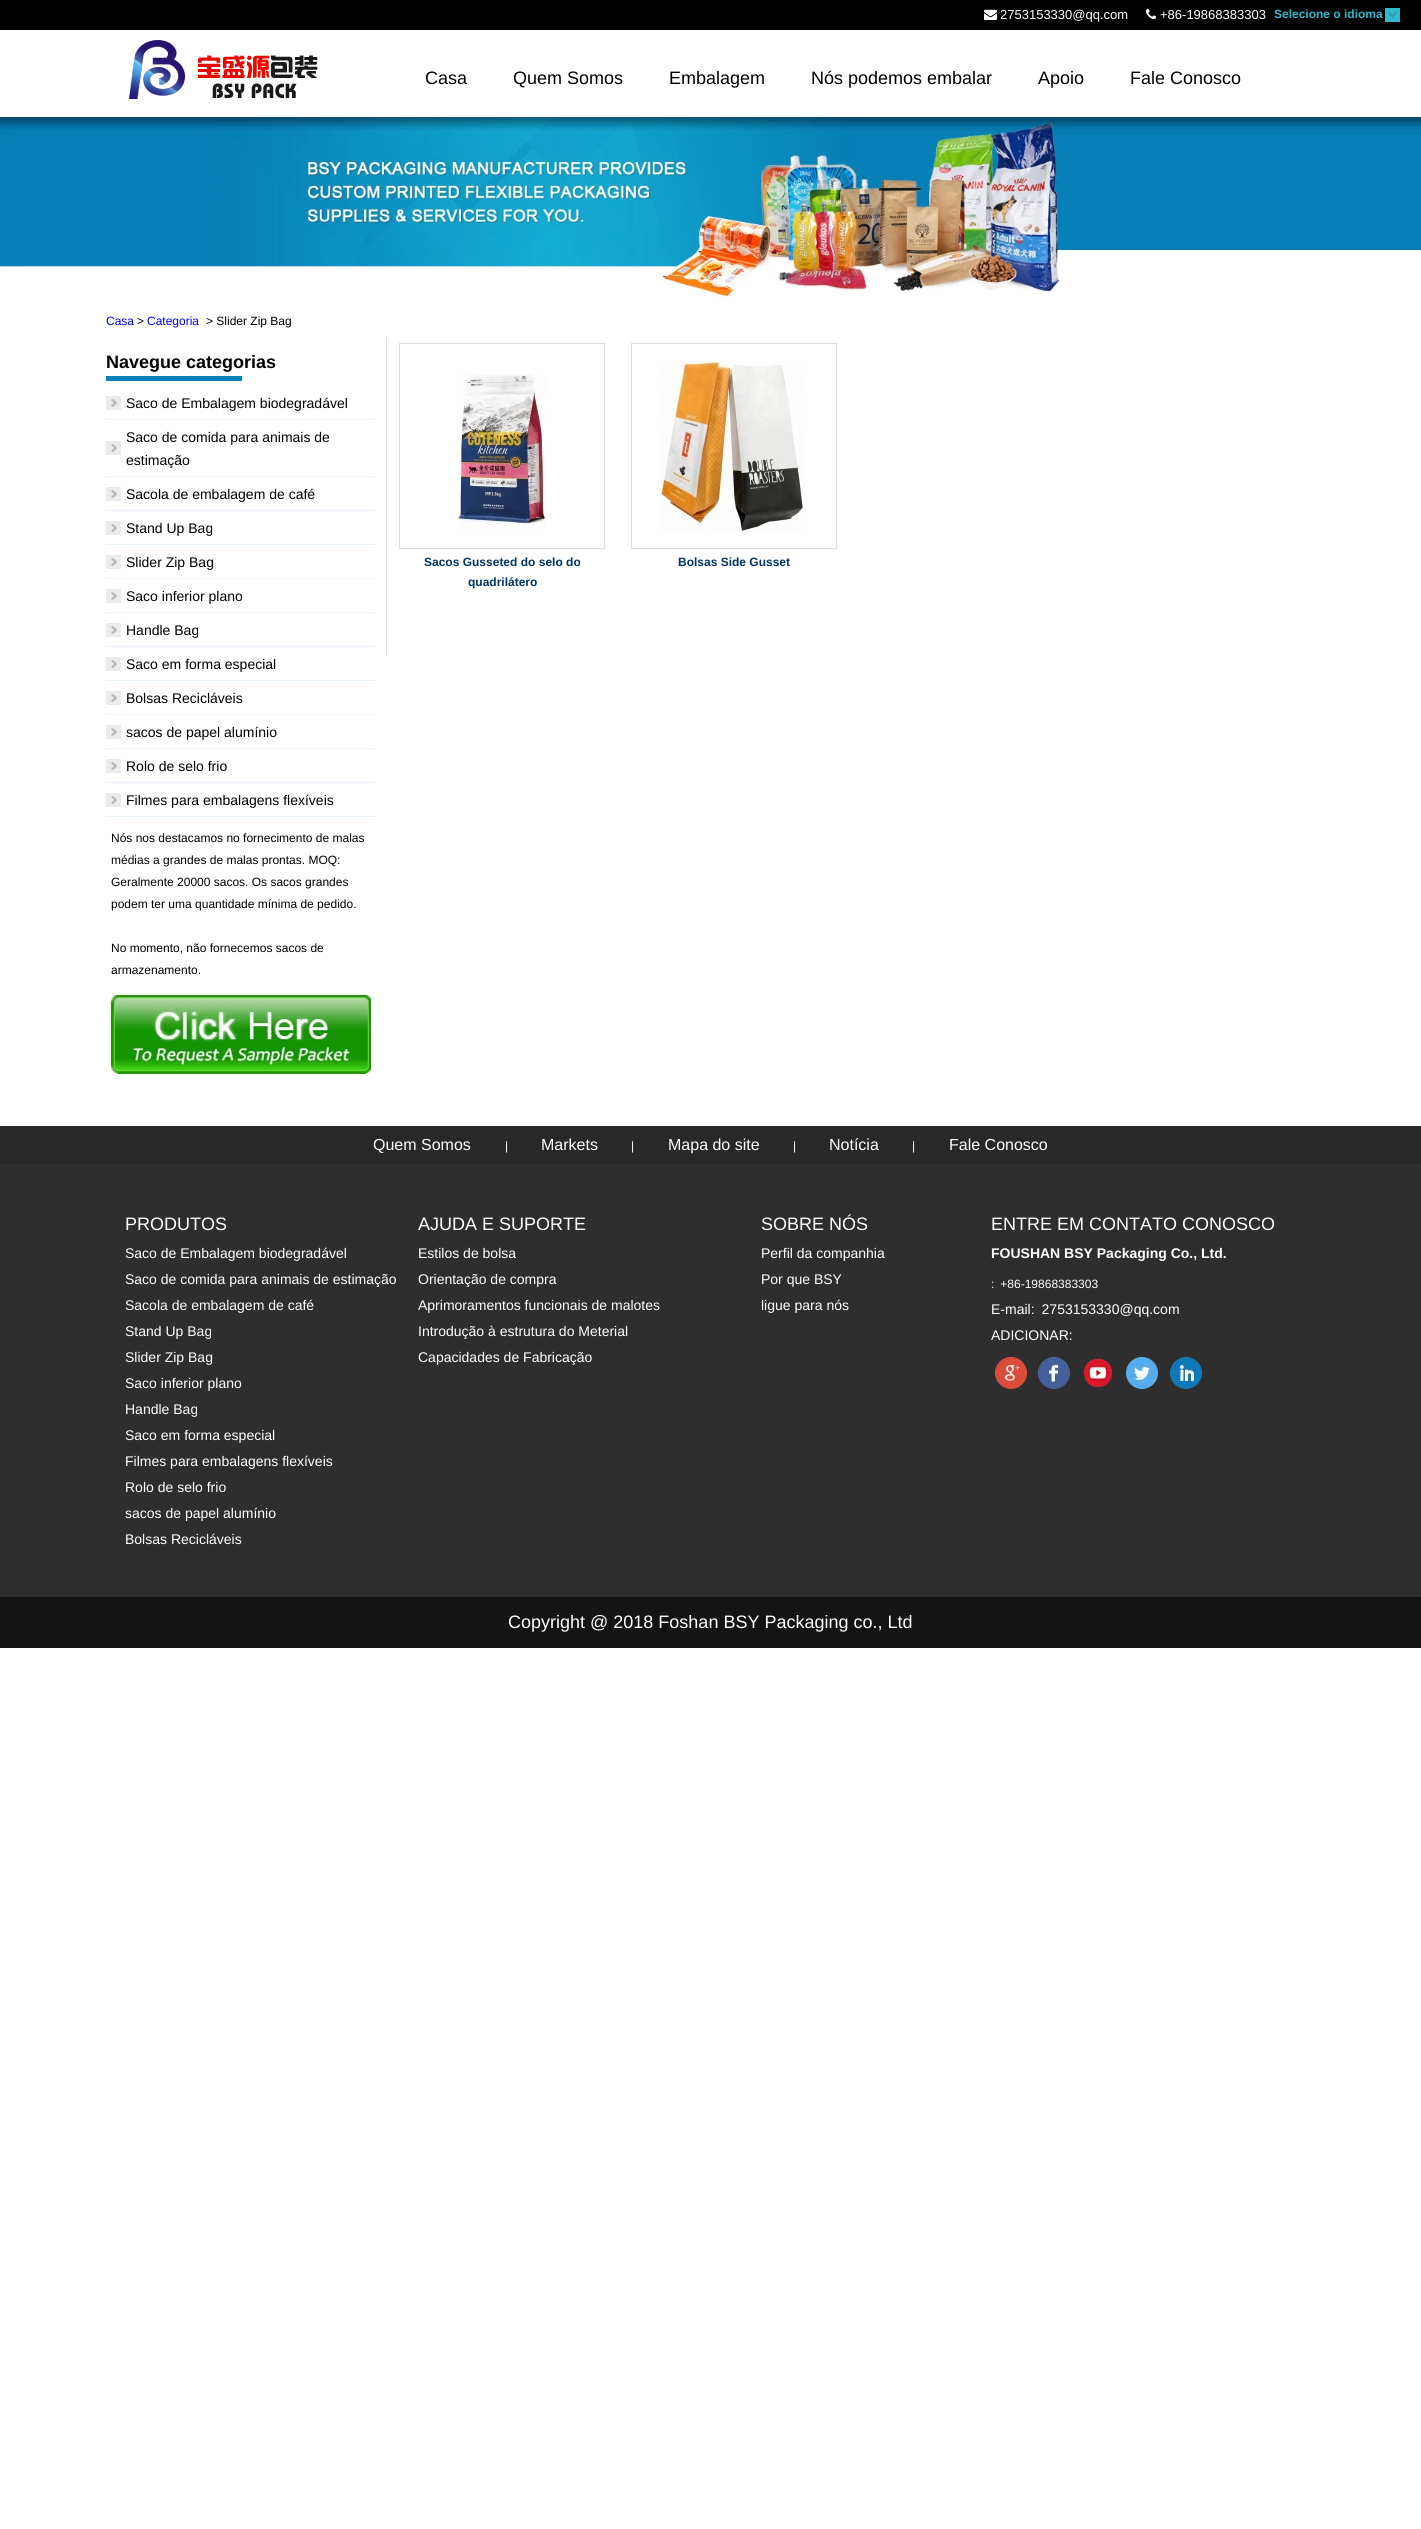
import math
import cairo

surface = cairo.ImageSurface(cairo.FORMAT_RGB24, 1421, 2529)
ctx = cairo.Context(surface)
options = cairo.FontOptions()
options.set_hint_metrics(cairo.HINT_METRICS_OFF)
options.set_hint_style(cairo.HINT_STYLE_NONE)
ctx.set_font_options(options)
ctx.set_miter_limit(4)


def set_color(code):
    ctx.set_source_rgb(*(v / 255 for v in bytes.fromhex(code[-6:])))


def draw_text(x, y, s, family, size, color, bold=False, italic=False):
    ctx.select_font_face(family, cairo.FONT_SLANT_ITALIC if italic else cairo.FONT_SLANT_NORMAL, cairo.FONT_WEIGHT_BOLD if bold else cairo.FONT_WEIGHT_NORMAL)
    ctx.set_font_size(size)
    set_color(color)
    ctx.move_to(x, y)
    ctx.show_text(s)


def fill_rect(x, y, w, h, color):
    set_color(color)
    ctx.rectangle(x, y, w, h)
    ctx.fill()


def draw_image(path, x, y, w, h):
    ctx.save()
    ctx.set_source_surface(cairo.ImageSurface.create_from_png(path), x, y)
    ctx.rectangle(x, y, w, h)
    ctx.fill()
    ctx.restore()


set_color("#ffffff")
ctx.paint()
fill_rect(0, 0, 1421, 30, "#000000")
draw_image("assets/img1.png", 984, 9, 13, 11)
draw_text(1000, 19, "2753153330@qq.com", "Liberation Sans", 13, "#ffffff")
draw_image("assets/img2.png", 1146, 8, 11, 12)
draw_text(1160, 19, "+86-19868383303", "Liberation Sans", 13, "#ffffff")
draw_image("assets/img3.png", 1385, 8, 15, 14)
draw_text(1274, 18, "Selecione o idioma", "Liberation Sans", 12, "#2dbad0", bold=True)
draw_image("assets/img4.png", 129, 40, 189, 59)
draw_text(425, 84, "Casa", "Liberation Sans", 18, "#000000")
draw_text(513, 84, "Quem Somos", "Liberation Sans", 18, "#000000")
draw_text(669, 84, "Embalagem", "Liberation Sans", 18, "#000000")
draw_text(811, 84, "Nós podemos embalar", "Liberation Sans", 18, "#000000")
draw_text(1038, 84, "Apoio", "Liberation Sans", 18, "#000000")
draw_text(1130, 84, "Fale Conosco", "Liberation Sans", 18, "#000000")
draw_image("assets/img5.png", 0, 117, 1421, 183)
draw_text(106, 325, "Casa", "Liberation Sans", 12, "#0000ee")
draw_text(137, 325, ">", "Liberation Sans", 12, "#000000")
draw_text(147, 325, "Categoria", "Liberation Sans", 12, "#0000ee")
draw_text(206, 325, "> Slider Zip Bag", "Liberation Sans", 12, "#000000")
draw_text(106, 368, "Navegue categorias", "Liberation Sans", 18, "#000000", bold=True)
fill_rect(106, 376, 136, 5, "#0780b7")
draw_image("assets/img6.png", 106, 396, 15, 14)
fill_rect(106, 419, 270, 1, "#e7f3ff")
draw_text(126, 408, "Saco de Embalagem biodegradável", "Liberation Sans", 14, "#000000")
draw_image("assets/img6.png", 106, 441, 15, 14)
fill_rect(106, 476, 270, 1, "#e7f3ff")
draw_text(126, 442, "Saco de comida para animais de", "Liberation Sans", 14, "#000000")
draw_text(126, 465, "estimação", "Liberation Sans", 14, "#000000")
draw_image("assets/img6.png", 106, 487, 15, 14)
fill_rect(106, 510, 270, 1, "#e7f3ff")
draw_text(126, 499, "Sacola de embalagem de café", "Liberation Sans", 14, "#000000")
draw_image("assets/img6.png", 106, 521, 15, 14)
fill_rect(106, 544, 270, 1, "#e7f3ff")
draw_text(126, 533, "Stand Up Bag", "Liberation Sans", 14, "#000000")
draw_image("assets/img6.png", 106, 555, 15, 14)
fill_rect(106, 578, 270, 1, "#e7f3ff")
draw_text(126, 567, "Slider Zip Bag", "Liberation Sans", 14, "#000000")
draw_image("assets/img6.png", 106, 589, 15, 14)
fill_rect(106, 612, 270, 1, "#e7f3ff")
draw_text(126, 601, "Saco inferior plano", "Liberation Sans", 14, "#000000")
draw_image("assets/img6.png", 106, 623, 15, 14)
fill_rect(106, 646, 270, 1, "#e7f3ff")
draw_text(126, 635, "Handle Bag", "Liberation Sans", 14, "#000000")
draw_image("assets/img6.png", 106, 657, 15, 14)
fill_rect(106, 680, 270, 1, "#e7f3ff")
draw_text(126, 669, "Saco em forma especial", "Liberation Sans", 14, "#000000")
draw_image("assets/img6.png", 106, 691, 15, 14)
fill_rect(106, 714, 270, 1, "#e7f3ff")
draw_text(126, 703, "Bolsas Recicláveis", "Liberation Sans", 14, "#000000")
draw_image("assets/img6.png", 106, 725, 15, 14)
fill_rect(106, 748, 270, 1, "#e7f3ff")
draw_text(126, 737, "sacos de papel alumínio", "Liberation Sans", 14, "#000000")
draw_image("assets/img6.png", 106, 759, 15, 14)
fill_rect(106, 782, 270, 1, "#e7f3ff")
draw_text(126, 771, "Rolo de selo frio", "Liberation Sans", 14, "#000000")
draw_image("assets/img6.png", 106, 793, 15, 14)
fill_rect(106, 816, 270, 1, "#e7f3ff")
draw_text(126, 805, "Filmes para embalagens flexíveis", "Liberation Sans", 14, "#000000")
draw_text(111, 842, "Nós nos destacamos no fornecimento de malas", "Liberation Sans", 12, "#000000")
draw_text(111, 864, "médias a grandes de malas prontas. MOQ:", "Liberation Sans", 12, "#000000")
draw_text(111, 886, "Geralmente 20000 sacos. Os sacos grandes", "Liberation Sans", 12, "#000000")
draw_text(111, 908, "podem ter uma quantidade mínima de pedido.", "Liberation Sans", 12, "#000000")
draw_text(111, 952, "No momento, não fornecemos sacos de", "Liberation Sans", 12, "#000000")
draw_text(111, 974, "armazenamento.", "Liberation Sans", 12, "#000000")
draw_image("assets/img7.png", 106, 992, 268, 84)
fill_rect(386, 338, 1, 317, "#dddddd")
ctx.rectangle(399.5, 343.5, 205, 205)
set_color("#dcdcdc")
ctx.set_line_width(1)
ctx.stroke()
draw_image("assets/img8.png", 457, 374, 89, 156)
draw_text(424, 566, "Sacos Gusseted do selo do", "Liberation Sans", 12, "#003366", bold=True)
draw_text(468, 586, "quadrilátero", "Liberation Sans", 12, "#003366", bold=True)
ctx.rectangle(631.5, 343.5, 205, 205)
set_color("#dcdcdc")
ctx.stroke()
draw_image("assets/img9.png", 658, 361, 148, 171)
draw_text(678, 566, "Bolsas Side Gusset", "Liberation Sans", 12, "#003366", bold=True)
fill_rect(0, 1126, 1421, 38, "#282828")
draw_text(373, 1150, "Quem Somos", "Liberation Sans", 16, "#ffffff")
draw_text(505, 1150, "|", "Liberation Sans", 12, "#ffffff")
draw_text(541, 1150, "Markets", "Liberation Sans", 16, "#ffffff")
draw_text(631, 1150, "|", "Liberation Sans", 12, "#ffffff")
draw_text(668, 1150, "Mapa do site", "Liberation Sans", 16, "#ffffff")
draw_text(793, 1150, "|", "Liberation Sans", 12, "#ffffff")
draw_text(829, 1150, "Notícia", "Liberation Sans", 16, "#ffffff")
draw_text(912, 1150, "|", "Liberation Sans", 12, "#ffffff")
draw_text(949, 1150, "Fale Conosco", "Liberation Sans", 16, "#ffffff")
fill_rect(0, 1164, 1421, 433, "#2e2e2e")
draw_text(125, 1230, "PRODUTOS", "Liberation Sans", 18, "#ffffff")
draw_text(125, 1258, "Saco de Embalagem biodegradável", "Liberation Sans", 14, "#ffffff")
draw_text(125, 1284, "Saco de comida para animais de estimação", "Liberation Sans", 14, "#ffffff")
draw_text(125, 1310, "Sacola de embalagem de café", "Liberation Sans", 14, "#ffffff")
draw_text(125, 1336, "Stand Up Bag", "Liberation Sans", 14, "#ffffff")
draw_text(125, 1362, "Slider Zip Bag", "Liberation Sans", 14, "#ffffff")
draw_text(125, 1388, "Saco inferior plano", "Liberation Sans", 14, "#ffffff")
draw_text(125, 1414, "Handle Bag", "Liberation Sans", 14, "#ffffff")
draw_text(125, 1440, "Saco em forma especial", "Liberation Sans", 14, "#ffffff")
draw_text(125, 1466, "Filmes para embalagens flexíveis", "Liberation Sans", 14, "#ffffff")
draw_text(125, 1492, "Rolo de selo frio", "Liberation Sans", 14, "#ffffff")
draw_text(125, 1518, "sacos de papel alumínio", "Liberation Sans", 14, "#ffffff")
draw_text(125, 1544, "Bolsas Recicláveis", "Liberation Sans", 14, "#ffffff")
draw_text(418, 1230, "AJUDA E SUPORTE", "Liberation Sans", 18, "#ffffff")
draw_text(418, 1258, "Estilos de bolsa", "Liberation Sans", 14, "#ffffff")
draw_text(418, 1284, "Orientação de compra", "Liberation Sans", 14, "#ffffff")
draw_text(418, 1310, "Aprimoramentos funcionais de malotes", "Liberation Sans", 14, "#ffffff")
draw_text(418, 1336, "Introdução à estrutura do Meterial", "Liberation Sans", 14, "#ffffff")
draw_text(418, 1362, "Capacidades de Fabricação", "Liberation Sans", 14, "#ffffff")
draw_text(761, 1230, "SOBRE NÓS", "Liberation Sans", 18, "#ffffff")
draw_text(761, 1258, "Perfil da companhia", "Liberation Sans", 14, "#ffffff")
draw_text(761, 1284, "Por que BSY", "Liberation Sans", 14, "#ffffff")
draw_text(761, 1310, "ligue para nós", "Liberation Sans", 14, "#ffffff")
draw_text(991, 1230, "ENTRE EM CONTATO CONOSCO", "Liberation Sans", 18, "#ffffff")
draw_text(991, 1258, "FOUSHAN BSY Packaging Co., Ltd.", "Liberation Sans", 14, "#ffffff", bold=True)
draw_text(991, 1288, ": +86-19868383303", "Liberation Sans", 12, "#ffffff")
draw_text(991, 1314, "E-mail: 2753153330@qq.com", "Liberation Sans", 14, "#ffffff")
draw_text(991, 1340, "ADICIONAR:", "Liberation Sans", 14, "#ffffff")
draw_image("assets/img10.png", 995, 1357, 32, 32)
draw_image("assets/img11.png", 1038, 1357, 32, 32)
draw_image("assets/img12.png", 1083, 1358, 29, 29)
draw_image("assets/img13.png", 1126, 1357, 32, 32)
draw_image("assets/img14.png", 1170, 1357, 32, 32)
fill_rect(0, 1597, 1421, 51, "#141414")
draw_text(508, 1628, "Copyright @ 2018 Foshan BSY Packaging co., Ltd", "Liberation Sans", 18, "#ffffff")
surface.write_to_png("output.png")
